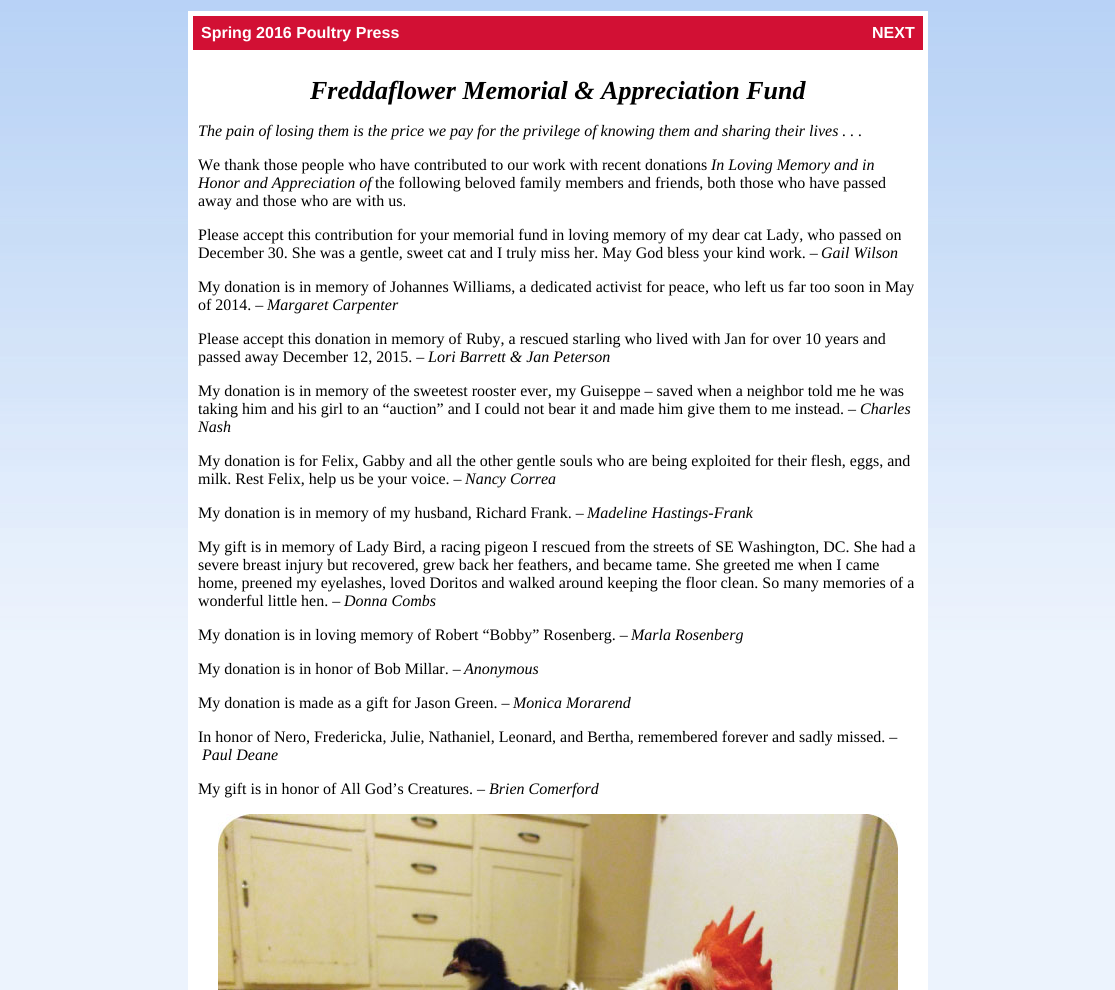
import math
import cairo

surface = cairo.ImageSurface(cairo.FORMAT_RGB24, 1115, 990)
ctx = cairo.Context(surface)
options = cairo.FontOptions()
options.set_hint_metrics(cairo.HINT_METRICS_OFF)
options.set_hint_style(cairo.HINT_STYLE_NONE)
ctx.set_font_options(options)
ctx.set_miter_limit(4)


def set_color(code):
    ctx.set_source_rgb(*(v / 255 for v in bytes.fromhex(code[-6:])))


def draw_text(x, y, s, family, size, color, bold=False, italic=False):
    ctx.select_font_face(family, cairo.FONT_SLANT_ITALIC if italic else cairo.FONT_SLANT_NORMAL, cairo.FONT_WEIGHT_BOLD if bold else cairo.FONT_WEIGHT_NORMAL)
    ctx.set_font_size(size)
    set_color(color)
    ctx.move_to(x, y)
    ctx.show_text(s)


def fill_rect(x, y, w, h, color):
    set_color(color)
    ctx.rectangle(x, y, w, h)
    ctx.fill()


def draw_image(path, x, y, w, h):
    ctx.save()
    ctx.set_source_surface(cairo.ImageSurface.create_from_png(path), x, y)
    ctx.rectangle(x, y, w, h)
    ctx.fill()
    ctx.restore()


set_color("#ffffff")
ctx.paint()
draw_image("assets/img1.png", 0, 0, 1115, 990)
fill_rect(188, 11, 740, 979, "#ffffff")
fill_rect(193, 16, 730, 34, "#d21034")
draw_text(201, 38, "Spring 2016 Poultry Press", "Liberation Sans", 16, "#ffffff", bold=True)
draw_text(872, 38, "NEXT", "Liberation Sans", 16, "#ffffff", bold=True)
draw_text(310, 99, "Freddaflower Memorial & Appreciation Fund", "Liberation Serif", 26, "#000000", bold=True, italic=True)
draw_text(198, 136, "The pain of losing them is the price we pay for the privilege of knowing them and sharing their lives . . .", "Liberation Serif", 16, "#000000", italic=True)
draw_text(198, 170, "We thank those people who have contributed to our work with recent donations", "Liberation Serif", 16, "#000000")
draw_text(711, 170, "In Loving Memory and in", "Liberation Serif", 16, "#000000", italic=True)
draw_text(198, 188, "Honor and Appreciation of", "Liberation Serif", 16, "#000000", italic=True)
draw_text(375, 188, "the following beloved family members and friends, both those who have passed", "Liberation Serif", 16, "#000000")
draw_text(198, 206, "away and those who are with us.", "Liberation Serif", 16, "#000000")
draw_text(198, 240, "Please accept this contribution for your memorial fund in loving memory of my dear cat Lady, who passed on", "Liberation Serif", 16, "#000000")
draw_text(198, 258, "December 30. She was a gentle, sweet cat and I truly miss her. May God bless your kind work. –", "Liberation Serif", 16, "#000000")
draw_text(821, 258, "Gail Wilson", "Liberation Serif", 16, "#000000", italic=True)
draw_text(198, 292, "My donation is in memory of Johannes Williams, a dedicated activist for peace, who left us far too soon in May", "Liberation Serif", 16, "#000000")
draw_text(198, 310, "of 2014. –", "Liberation Serif", 16, "#000000")
draw_text(267, 310, "Margaret Carpenter", "Liberation Serif", 16, "#000000", italic=True)
draw_text(198, 344, "Please accept this donation in memory of Ruby, a rescued starling who lived with Jan for over 10 years and", "Liberation Serif", 16, "#000000")
draw_text(198, 362, "passed away December 12, 2015. –", "Liberation Serif", 16, "#000000")
draw_text(428, 362, "Lori Barrett & Jan Peterson", "Liberation Serif", 16, "#000000", italic=True)
draw_text(198, 396, "My donation is in memory of the sweetest rooster ever, my Guiseppe – saved when a neighbor told me he was", "Liberation Serif", 16, "#000000")
draw_text(198, 414, "taking him and his girl to an “auction” and I could not bear it and made him give them to me instead. –", "Liberation Serif", 16, "#000000")
draw_text(860, 414, "Charles", "Liberation Serif", 16, "#000000", italic=True)
draw_text(198, 432, "Nash", "Liberation Serif", 16, "#000000", italic=True)
draw_text(198, 466, "My donation is for Felix, Gabby and all the other gentle souls who are being exploited for their flesh, eggs, and", "Liberation Serif", 16, "#000000")
draw_text(198, 484, "milk. Rest Felix, help us be your voice. –", "Liberation Serif", 16, "#000000")
draw_text(465, 484, "Nancy Correa", "Liberation Serif", 16, "#000000", italic=True)
draw_text(198, 518, "My donation is in memory of my husband, Richard Frank. –", "Liberation Serif", 16, "#000000")
draw_text(587, 518, "Madeline Hastings-Frank", "Liberation Serif", 16, "#000000", italic=True)
draw_text(198, 552, "My gift is in memory of Lady Bird, a racing pigeon I rescued from the streets of SE Washington, DC. She had a", "Liberation Serif", 16, "#000000")
draw_text(198, 570, "severe breast injury but recovered, grew back her feathers, and became tame. She greeted me when I came", "Liberation Serif", 16, "#000000")
draw_text(198, 588, "home, preened my eyelashes, loved Doritos and walked around keeping the floor clean. So many memories of a", "Liberation Serif", 16, "#000000")
draw_text(198, 606, "wonderful little hen. –", "Liberation Serif", 16, "#000000")
draw_text(344, 606, "Donna Combs", "Liberation Serif", 16, "#000000", italic=True)
draw_text(198, 640, "My donation is in loving memory of Robert “Bobby” Rosenberg. –", "Liberation Serif", 16, "#000000")
draw_text(631, 640, "Marla Rosenberg", "Liberation Serif", 16, "#000000", italic=True)
draw_text(198, 674, "My donation is in honor of Bob Millar. –", "Liberation Serif", 16, "#000000")
draw_text(464, 674, "Anonymous", "Liberation Serif", 16, "#000000", italic=True)
draw_text(198, 708, "My donation is made as a gift for Jason Green. –", "Liberation Serif", 16, "#000000")
draw_text(513, 708, "Monica Morarend", "Liberation Serif", 16, "#000000", italic=True)
draw_text(198, 742, "In honor of Nero, Fredericka, Julie, Nathaniel, Leonard, and Bertha, remembered forever and sadly missed. –", "Liberation Serif", 16, "#000000")
draw_text(202, 760, "Paul Deane", "Liberation Serif", 16, "#000000", italic=True)
draw_text(198, 794, "My gift is in honor of All God’s Creatures. –", "Liberation Serif", 16, "#000000")
draw_text(489, 794, "Brien Comerford", "Liberation Serif", 16, "#000000", italic=True)
draw_image("assets/img2.png", 218, 814, 680, 176)
surface.write_to_png("output.png")
